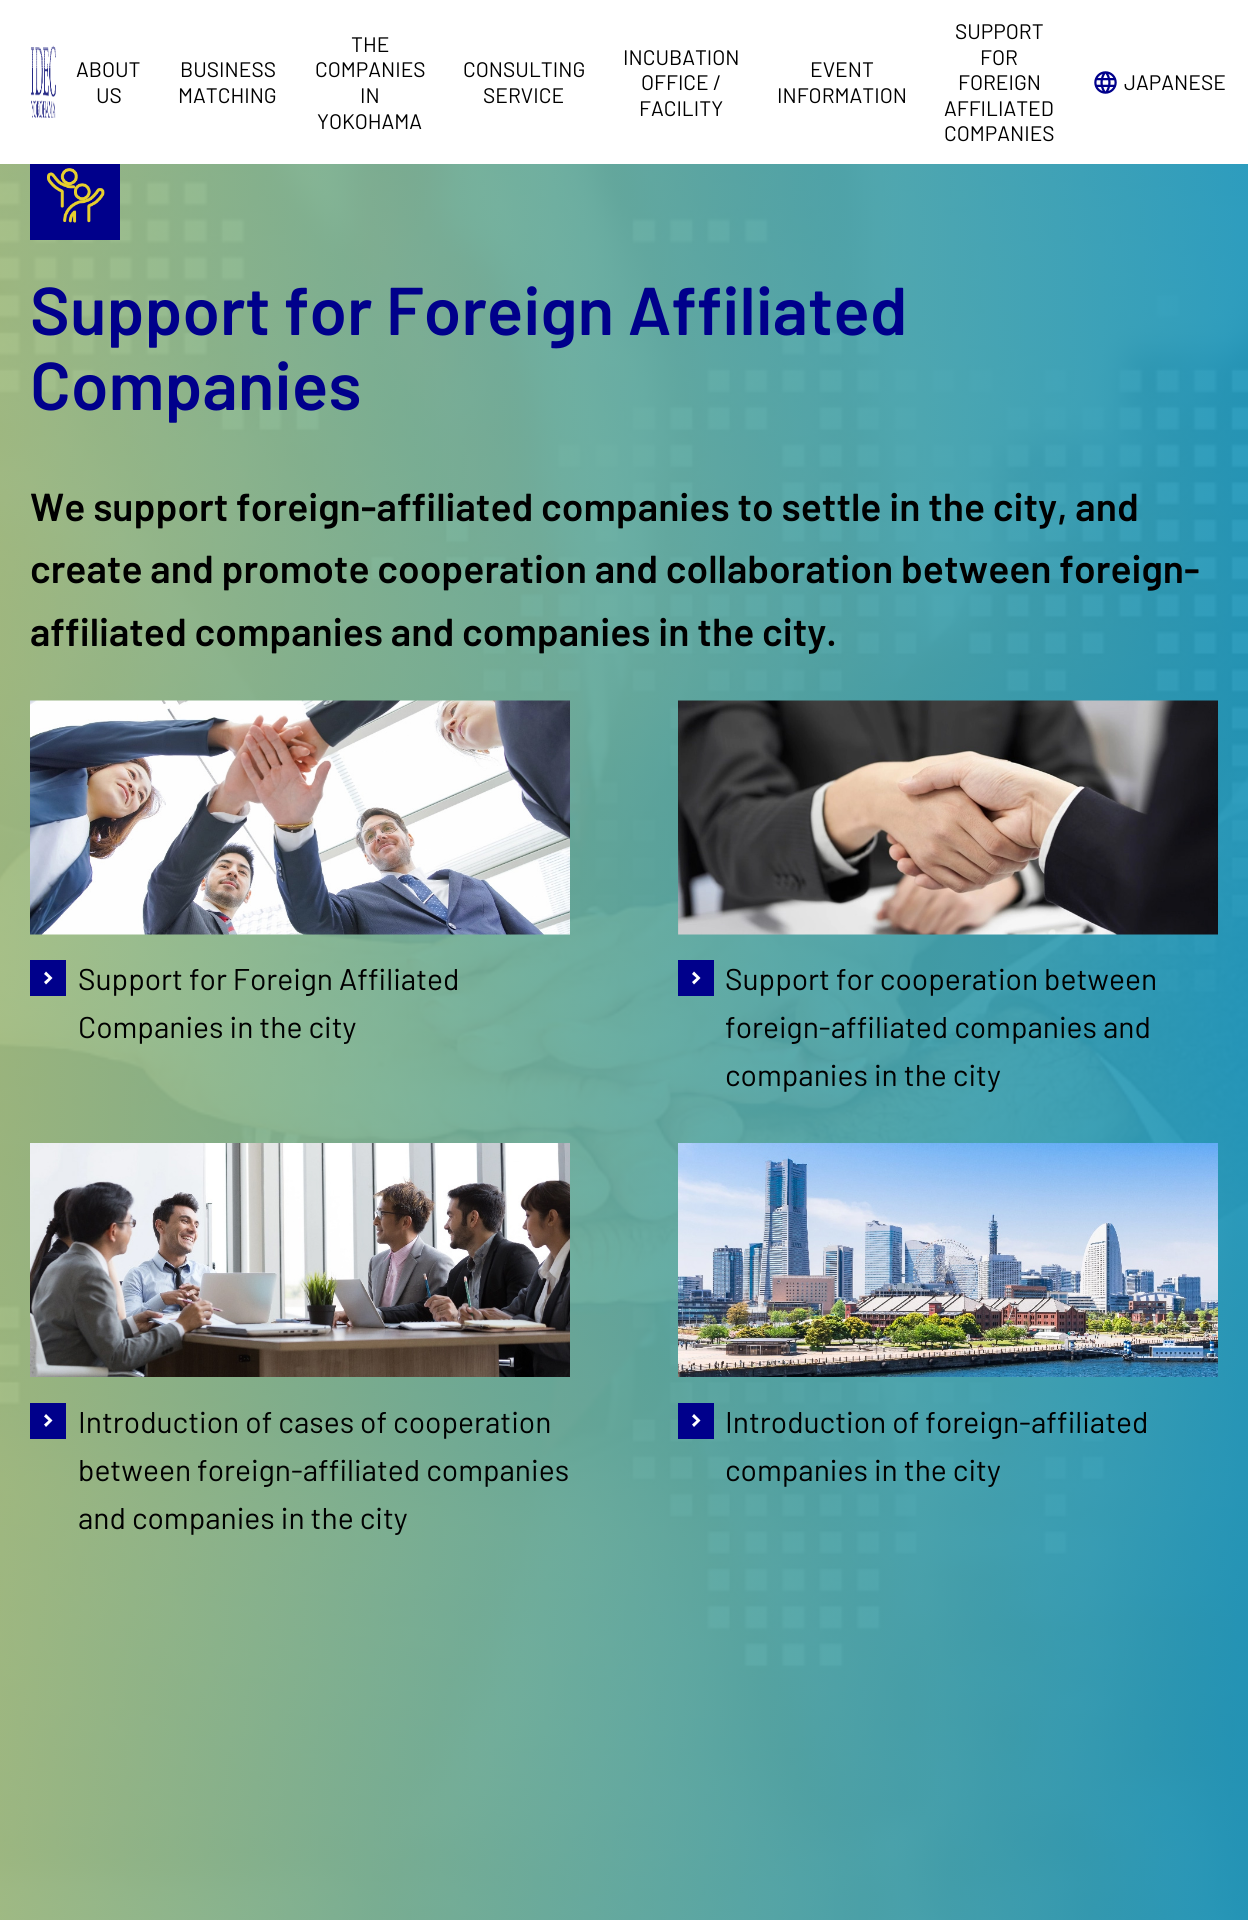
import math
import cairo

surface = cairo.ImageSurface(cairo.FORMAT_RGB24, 1248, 1920)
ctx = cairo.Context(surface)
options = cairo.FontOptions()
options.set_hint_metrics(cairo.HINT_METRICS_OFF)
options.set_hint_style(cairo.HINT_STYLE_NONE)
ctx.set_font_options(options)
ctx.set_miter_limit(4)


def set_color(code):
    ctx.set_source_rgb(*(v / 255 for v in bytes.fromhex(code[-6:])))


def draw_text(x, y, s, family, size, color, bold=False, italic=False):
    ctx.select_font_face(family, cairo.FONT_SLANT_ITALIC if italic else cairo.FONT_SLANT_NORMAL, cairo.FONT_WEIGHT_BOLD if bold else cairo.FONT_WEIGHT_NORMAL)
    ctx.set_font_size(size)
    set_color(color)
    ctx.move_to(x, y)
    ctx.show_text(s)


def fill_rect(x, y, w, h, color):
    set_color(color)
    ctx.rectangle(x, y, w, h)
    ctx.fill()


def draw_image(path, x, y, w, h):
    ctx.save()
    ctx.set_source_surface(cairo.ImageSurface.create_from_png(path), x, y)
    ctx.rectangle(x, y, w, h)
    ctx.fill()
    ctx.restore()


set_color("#ffffff")
ctx.paint()
draw_image("assets/img1.png", 30, 45, 26, 74)
draw_text(76, 77, "ABOUT", "Barlow", 21, "#000000")
draw_text(96, 103, "US", "Barlow", 21, "#000000")
draw_text(180, 77, "BUSINESS", "Barlow", 21, "#000000")
draw_text(178, 103, "MATCHING", "Barlow", 21, "#000000")
draw_text(351, 52, "THE", "Barlow", 21, "#000000")
draw_text(315, 77, "COMPANIES", "Barlow", 21, "#000000")
draw_text(360, 103, "IN", "Barlow", 21, "#000000")
draw_text(317, 129, "YOKOHAMA", "Barlow", 21, "#000000")
draw_text(463, 77, "CONSULTING", "Barlow", 21, "#000000")
draw_text(483, 103, "SERVICE", "Barlow", 21, "#000000")
draw_text(623, 65, "INCUBATION", "Barlow", 21, "#000000")
draw_text(641, 90, "OFFICE /", "Barlow", 21, "#000000")
draw_text(639, 116, "FACILITY", "Barlow", 21, "#000000")
draw_text(810, 77, "EVENT", "Barlow", 21, "#000000")
draw_text(777, 103, "INFORMATION", "Barlow", 21, "#000000")
draw_text(955, 39, "SUPPORT", "Barlow", 21, "#000000")
draw_text(980, 65, "FOR", "Barlow", 21, "#000000")
draw_text(958, 90, "FOREIGN", "Barlow", 21, "#000000")
draw_text(944, 116, "AFFILIATED", "Barlow", 21, "#000000")
draw_text(944, 141, "COMPANIES", "Barlow", 21, "#000000")
draw_image("assets/img2.png", 1094, 71, 23, 23)
draw_text(1124, 90, "JAPANESE", "Barlow", 21, "#000000")
draw_image("assets/img3.png", 0, 164, 1248, 1756)
fill_rect(30, 164, 90, 76, "#00008b")
draw_image("assets/img4.png", 47, 168, 58, 55)
draw_text(30, 335, "Support for Foreign Affiliated", "Barlow SemiBold", 67.5, "#00008b")
draw_text(30, 410, "Companies", "Barlow SemiBold", 67.5, "#00008b")
draw_text(30, 521, "We support foreign-affiliated companies to settle in the city, and", "Barlow SemiBold", 39, "#000000")
draw_text(30, 583, "create and promote cooperation and collaboration between foreign-", "Barlow SemiBold", 39, "#000000")
draw_text(30, 646, "affiliated companies and companies in the city.", "Barlow SemiBold", 39, "#000000")
draw_image("assets/img5.png", 30, 700, 540, 235)
fill_rect(30, 960, 36, 36, "#00008b")
set_color("#ffffff")
ctx.new_path()
ctx.move_to(48.5, 978)
ctx.line_to(44, 974)
ctx.line_to(46, 971.5)
ctx.line_to(52.5, 978)
ctx.line_to(46, 984.5)
ctx.line_to(44, 982)
ctx.close_path()
ctx.fill()
draw_text(78, 990, "Support for Foreign Affiliated", "Barlow", 30, "#000000")
draw_text(78, 1038, "Companies in the city", "Barlow", 30, "#000000")
draw_image("assets/img6.png", 678, 700, 540, 235)
fill_rect(678, 960, 36, 36, "#00008b")
set_color("#ffffff")
ctx.new_path()
ctx.move_to(696.5, 978)
ctx.line_to(692, 974)
ctx.line_to(694, 971.5)
ctx.line_to(700.5, 978)
ctx.line_to(694, 984.5)
ctx.line_to(692, 982)
ctx.close_path()
ctx.fill()
draw_text(725, 990, "Support for cooperation between", "Barlow", 30, "#000000")
draw_text(725, 1038, "foreign-affiliated companies and", "Barlow", 30, "#000000")
draw_text(725, 1086, "companies in the city", "Barlow", 30, "#000000")
draw_image("assets/img7.png", 30, 1143, 540, 234)
fill_rect(30, 1403, 36, 36, "#00008b")
set_color("#ffffff")
ctx.new_path()
ctx.move_to(48.5, 1420.5)
ctx.line_to(44, 1416.5)
ctx.line_to(46, 1414)
ctx.line_to(52.5, 1420.5)
ctx.line_to(46, 1427)
ctx.line_to(44, 1424.5)
ctx.close_path()
ctx.fill()
draw_text(78, 1433, "Introduction of cases of cooperation", "Barlow", 30, "#000000")
draw_text(78, 1481, "between foreign-affiliated companies", "Barlow", 30, "#000000")
draw_text(78, 1529, "and companies in the city", "Barlow", 30, "#000000")
draw_image("assets/img8.png", 678, 1143, 540, 234)
fill_rect(678, 1403, 36, 36, "#00008b")
set_color("#ffffff")
ctx.new_path()
ctx.move_to(696.5, 1420.5)
ctx.line_to(692, 1416.5)
ctx.line_to(694, 1414)
ctx.line_to(700.5, 1420.5)
ctx.line_to(694, 1427)
ctx.line_to(692, 1424.5)
ctx.close_path()
ctx.fill()
draw_text(725, 1433, "Introduction of foreign-affiliated", "Barlow", 30, "#000000")
draw_text(725, 1481, "companies in the city", "Barlow", 30, "#000000")
surface.write_to_png("output.png")
